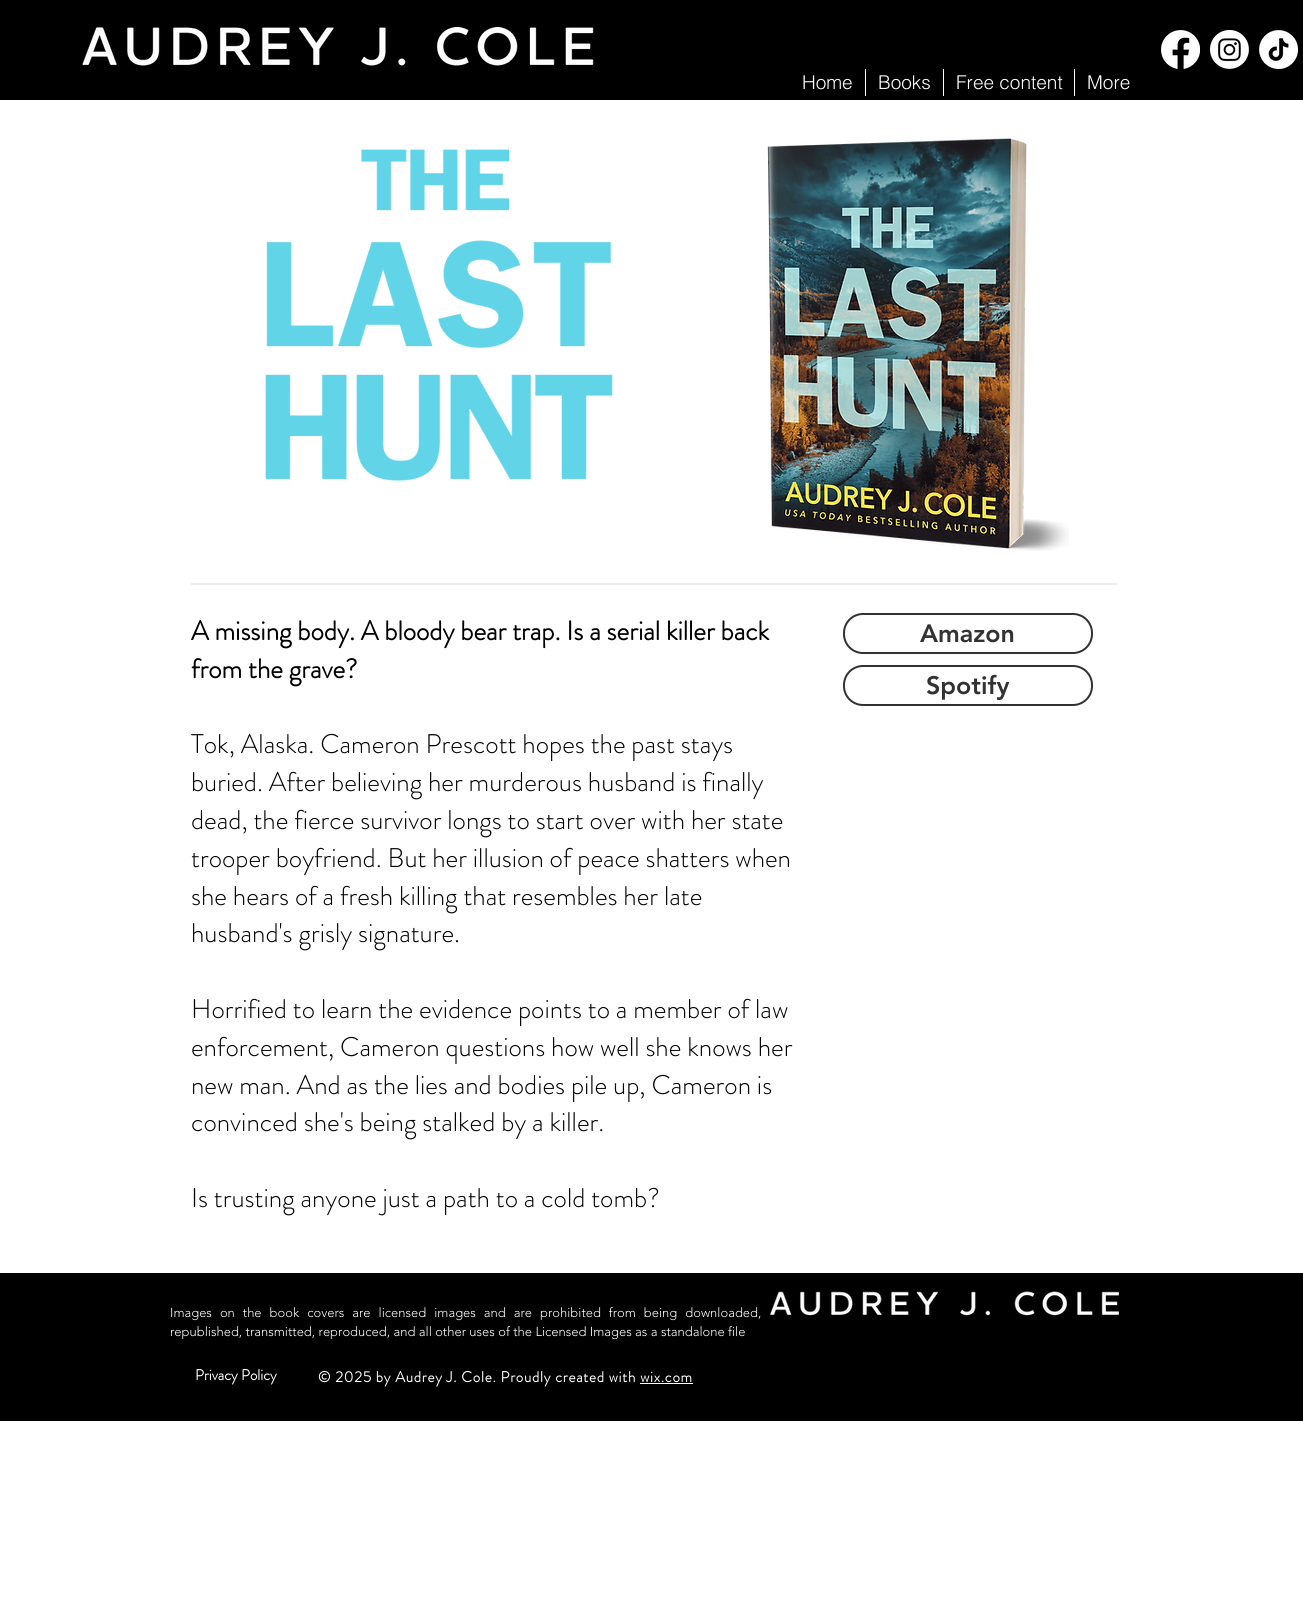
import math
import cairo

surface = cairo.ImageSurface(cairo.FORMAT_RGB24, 1303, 1609)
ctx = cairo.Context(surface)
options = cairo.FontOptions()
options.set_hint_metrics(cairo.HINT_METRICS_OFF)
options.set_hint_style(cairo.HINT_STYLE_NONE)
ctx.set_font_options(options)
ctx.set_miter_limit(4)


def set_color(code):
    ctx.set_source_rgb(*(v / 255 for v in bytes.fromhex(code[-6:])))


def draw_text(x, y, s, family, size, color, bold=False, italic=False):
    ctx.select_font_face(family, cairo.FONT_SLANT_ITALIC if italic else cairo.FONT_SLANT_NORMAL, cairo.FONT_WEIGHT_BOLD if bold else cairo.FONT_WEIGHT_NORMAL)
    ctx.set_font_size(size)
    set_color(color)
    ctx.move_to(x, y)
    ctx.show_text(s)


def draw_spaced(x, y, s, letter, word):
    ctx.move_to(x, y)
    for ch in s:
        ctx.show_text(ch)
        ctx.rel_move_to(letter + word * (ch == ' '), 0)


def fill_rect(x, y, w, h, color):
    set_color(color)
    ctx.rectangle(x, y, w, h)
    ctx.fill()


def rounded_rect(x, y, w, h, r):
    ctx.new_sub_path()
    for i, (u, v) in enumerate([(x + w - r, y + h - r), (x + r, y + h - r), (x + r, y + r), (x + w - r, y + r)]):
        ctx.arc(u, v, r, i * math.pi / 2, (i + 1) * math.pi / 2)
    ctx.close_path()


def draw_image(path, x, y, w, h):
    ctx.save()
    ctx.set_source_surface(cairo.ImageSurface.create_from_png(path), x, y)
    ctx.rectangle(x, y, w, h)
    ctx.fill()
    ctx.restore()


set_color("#ffffff")
ctx.paint()
fill_rect(0, 0, 1303, 100, "#000000")
draw_image("assets/img1.png", 82, 27, 512, 39)
draw_image("assets/img2.png", 1161, 30, 39, 39)
draw_image("assets/img3.png", 1210, 30, 39, 39)
draw_image("assets/img4.png", 1259, 30, 39, 39)
draw_text(802, 89, "Home", "helvetica Light", 19, "#ffffff")
fill_rect(865, 69, 1, 27, "#ffffff")
draw_text(878, 89, "Books", "helvetica Light", 19, "#ffffff")
fill_rect(943, 69, 1, 27, "#ffffff")
draw_text(956, 89, "Free content", "helvetica Light", 19, "#ffffff")
fill_rect(1074, 69, 1, 27, "#ffffff")
draw_text(1087, 89, "More", "helvetica Light", 19, "#ffffff")
draw_image("assets/img5.png", 265, 149, 348, 332)
draw_image("assets/img6.png", 767, 138, 302, 413)
fill_rect(191, 583, 926, 2, "#ededed")
draw_text(191, 640, "A missing body. A bloody bear trap. Is a serial killer back", "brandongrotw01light", 27, "#000000", bold=True)
draw_text(191, 678, "from the grave?", "brandongrotw01light", 27, "#000000", bold=True)
draw_text(191, 753, "Tok, Alaska. Cameron Prescott hopes the past stays", "brandongrotw01light Light", 27, "#000000")
draw_text(191, 791, "buried. After believing her murderous husband is finally", "brandongrotw01light Light", 27, "#000000")
draw_text(191, 829, "dead, the fierce survivor longs to start over with her state", "brandongrotw01light Light", 27, "#000000")
draw_text(191, 867, "trooper boyfriend. But her illusion of peace shatters when", "brandongrotw01light Light", 27, "#000000")
draw_text(191, 905, "she hears of a fresh killing that resembles her late", "brandongrotw01light Light", 27, "#000000")
draw_text(191, 942, "husband's grisly signature.", "brandongrotw01light Light", 27, "#000000")
draw_text(191, 1018, "Horrified to learn the evidence points to a member of law", "brandongrotw01light Light", 27, "#000000")
draw_text(191, 1056, "enforcement, Cameron questions how well she knows her", "brandongrotw01light Light", 27, "#000000")
draw_text(191, 1094, "new man. And as the lies and bodies pile up, Cameron is", "brandongrotw01light Light", 27, "#000000")
draw_text(191, 1131, "convinced she's being stalked by a killer.", "brandongrotw01light Light", 27, "#000000")
draw_text(191, 1207, "Is trusting anyone just a path to a cold tomb?", "brandongrotw01light Light", 27, "#000000")
rounded_rect(844, 614, 248, 39, 19)
set_color("#323232")
ctx.stroke()
draw_text(920, 642, "Amazon", "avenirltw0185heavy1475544 Black", 25, "#323232")
rounded_rect(844, 666, 248, 39, 19)
ctx.stroke()
draw_text(926, 694, "Spotify", "avenirltw0185heavy1475544 Black", 25, "#323232")
fill_rect(0, 1273, 1303, 148, "#000000")
draw_image("assets/img7.png", 770, 1289, 349, 27)
ctx.select_font_face("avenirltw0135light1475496 Light")
ctx.set_font_size(13)
set_color("#ffffff")
draw_spaced(170, 1317, "Images on the book covers are licensed images and are prohibited from being downloaded,", 0, 4.6)
draw_text(170, 1336, "republished, transmitted, reproduced, and all other uses of the Licensed Images as a standalone file", "avenirltw0135light1475496 Light", 13, "#ffffff")
draw_text(195, 1380, "Privacy Policy", "brandongrotw01light", 15, "#ffffff", bold=True)
draw_spaced(318, 1382, "© 2025 by Audrey J. Cole. Proudly created with wix.com", 0.75, 0)
fill_rect(640, 1383, 53, 1, "#ffffff")
surface.write_to_png("output.png")
